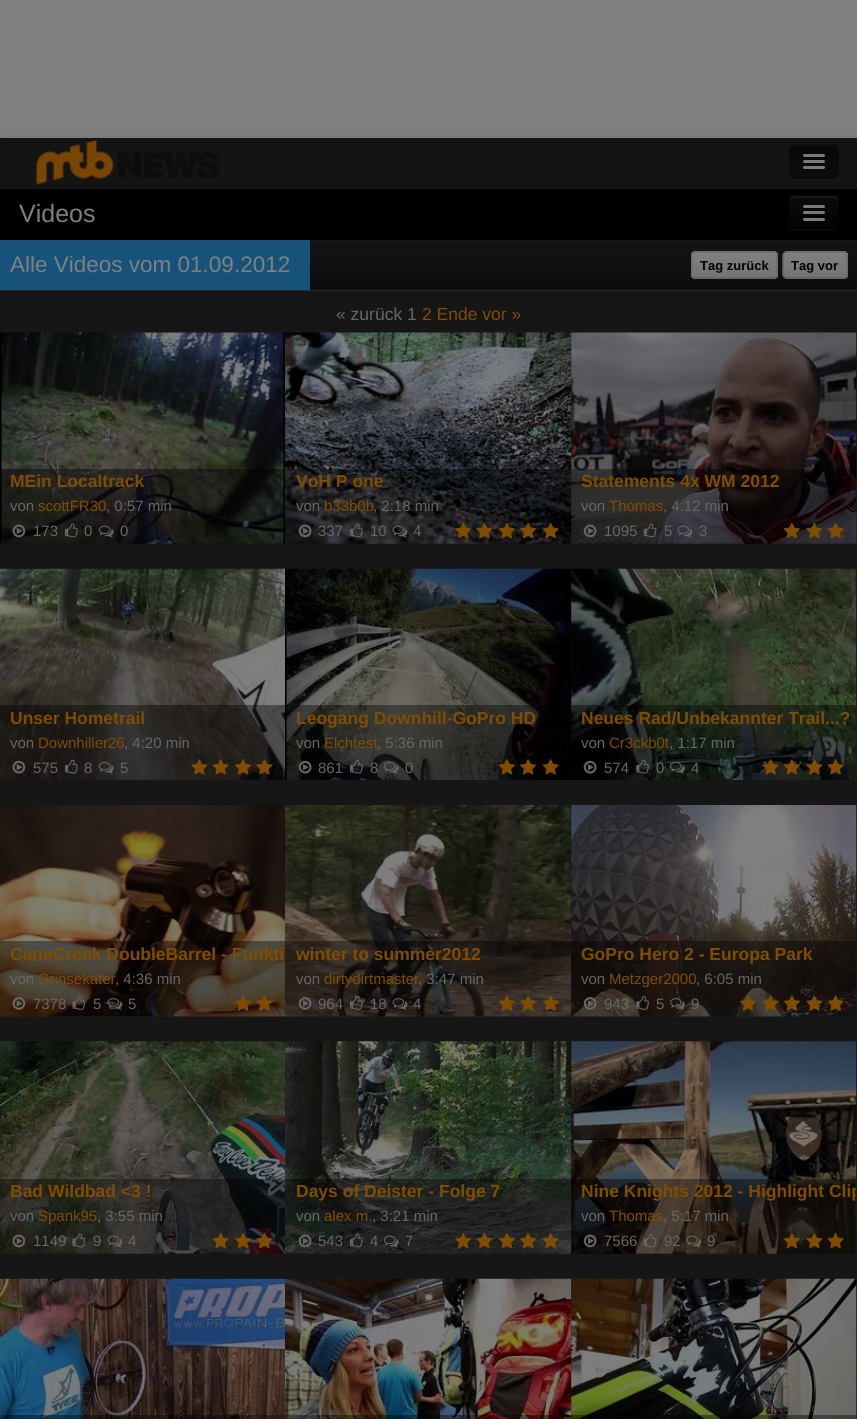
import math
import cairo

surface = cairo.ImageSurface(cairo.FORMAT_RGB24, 857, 1419)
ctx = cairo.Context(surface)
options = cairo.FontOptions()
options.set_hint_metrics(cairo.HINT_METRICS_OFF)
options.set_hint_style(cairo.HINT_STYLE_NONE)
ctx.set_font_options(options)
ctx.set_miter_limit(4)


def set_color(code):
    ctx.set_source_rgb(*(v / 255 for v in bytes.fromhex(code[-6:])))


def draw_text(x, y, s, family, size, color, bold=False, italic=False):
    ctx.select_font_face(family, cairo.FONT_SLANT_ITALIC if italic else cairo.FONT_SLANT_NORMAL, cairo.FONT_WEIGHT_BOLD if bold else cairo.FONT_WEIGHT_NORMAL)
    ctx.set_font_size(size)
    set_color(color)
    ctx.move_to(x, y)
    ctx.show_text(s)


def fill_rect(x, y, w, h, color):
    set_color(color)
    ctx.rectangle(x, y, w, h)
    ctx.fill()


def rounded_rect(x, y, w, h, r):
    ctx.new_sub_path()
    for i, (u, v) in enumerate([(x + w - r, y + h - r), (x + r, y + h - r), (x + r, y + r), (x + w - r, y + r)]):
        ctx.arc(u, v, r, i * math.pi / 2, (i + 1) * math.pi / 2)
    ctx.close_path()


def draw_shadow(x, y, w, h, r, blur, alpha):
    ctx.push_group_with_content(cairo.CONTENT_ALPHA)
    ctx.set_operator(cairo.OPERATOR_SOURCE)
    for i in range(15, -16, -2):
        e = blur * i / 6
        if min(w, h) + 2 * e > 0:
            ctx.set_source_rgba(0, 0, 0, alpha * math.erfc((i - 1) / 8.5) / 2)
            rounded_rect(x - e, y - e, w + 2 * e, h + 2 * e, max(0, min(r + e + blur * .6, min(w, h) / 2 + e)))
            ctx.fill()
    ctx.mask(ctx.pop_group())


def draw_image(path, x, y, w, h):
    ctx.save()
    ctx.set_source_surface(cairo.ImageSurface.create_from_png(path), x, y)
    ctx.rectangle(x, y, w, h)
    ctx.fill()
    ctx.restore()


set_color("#808080")
ctx.paint()
set_color("#000000")
draw_shadow(0, 139, 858, 50, 0, 6, 0.1)
fill_rect(0, 138, 857, 50, "#141414")
draw_image("assets/img1.png", 36, 139, 184, 47)
set_color("#1c1c1c")
ctx.new_path()
ctx.move_to(789, 175)
ctx.curve_to(789, 177, 790, 179, 792, 180)
ctx.line_to(827, 180)
ctx.curve_to(840, 180, 839, 179, 839, 167)
ctx.line_to(839, 148)
ctx.line_to(839, 175)
ctx.line_to(837, 177)
ctx.curve_to(835, 180, 830, 179, 827, 179)
ctx.line_to(800, 179)
ctx.curve_to(797, 179, 791, 180, 789, 175)
ctx.close_path()
ctx.fill()
set_color("#0a0a0a")
rounded_rect(789, 144, 50, 35, 5)
ctx.fill()
ctx.save()
rounded_rect(789, 144, 50, 35, 5)
ctx.clip()
gradient = cairo.LinearGradient(814, 145, 814, 178)
gradient.add_color_stop_rgba(0, 0.027, 0.027, 0.027, 1)
gradient.add_color_stop_rgba(1, 0.051, 0.051, 0.051, 1)
ctx.set_source(gradient)
ctx.rectangle(789, 145, 50, 33)
ctx.fill()
ctx.restore()
set_color("#131313")
ctx.new_path()
ctx.move_to(794, 146)
ctx.line_to(834, 146)
ctx.curve_to(836, 146, 838, 148, 838, 150)
ctx.curve_to(838, 144, 832, 145, 827, 145)
ctx.line_to(801, 145)
ctx.curve_to(796, 145, 790, 144, 790, 150)
ctx.curve_to(790, 148, 792, 146, 794, 146)
ctx.close_path()
ctx.fill()
ctx.new_path()
ctx.move_to(837, 177)
ctx.curve_to(836, 177.5, 835, 178, 834, 178)
ctx.line_to(794, 178)
ctx.curve_to(792.5, 178, 791.5, 177.5, 790.5, 177)
ctx.set_source_rgba(0, 0, 0, 0.25)
ctx.set_line_width(1.2)
ctx.stroke()
set_color("#7b7b7b")
rounded_rect(803, 154, 22, 3, 1.5)
ctx.fill()
rounded_rect(803, 160, 22, 3, 1.5)
ctx.fill()
set_color("#090909")
ctx.new_path()
ctx.move_to(803.5, 168.5)
ctx.curve_to(801.5, 171.5, 807, 171, 807.5, 171)
ctx.line_to(814, 171)
ctx.curve_to(816, 171, 824, 171.5, 824.5, 170.5)
ctx.curve_to(825, 169.5, 825, 169, 824.5, 168.5)
ctx.curve_to(824, 169, 804.5, 169, 803.5, 168.5)
ctx.close_path()
ctx.fill()
set_color("#7b7b7b")
rounded_rect(803, 166, 22, 3, 1.5)
ctx.fill()
fill_rect(0, 188, 857, 1231, "#161616")
fill_rect(0, 189, 857, 51, "#000000")
draw_text(19, 222, "Videos", "Liberation Sans", 25, "#808080")
set_color("#0a0a0a")
ctx.new_path()
ctx.move_to(789, 227)
ctx.curve_to(790, 232, 797, 231, 801, 231)
ctx.line_to(821, 231)
ctx.curve_to(841, 231, 839, 233, 839, 214)
ctx.line_to(839, 199)
ctx.line_to(839, 225)
ctx.curve_to(839, 228, 837, 230, 834, 230)
ctx.line_to(794, 230)
ctx.curve_to(792, 230, 790, 229, 789, 227)
ctx.close_path()
ctx.fill()
set_color("#070707")
rounded_rect(789, 195, 50, 35, 5)
ctx.fill()
ctx.save()
rounded_rect(789, 195, 50, 35, 5)
ctx.clip()
gradient = cairo.LinearGradient(814, 196, 814, 229)
gradient.add_color_stop_rgba(0, 0.043, 0.043, 0.043, 1)
gradient.add_color_stop_rgba(1, 0.008, 0.008, 0.008, 1)
ctx.set_source(gradient)
ctx.rectangle(789, 196, 50, 33)
ctx.fill()
ctx.restore()
set_color("#161616")
ctx.new_path()
ctx.move_to(794, 198)
ctx.line_to(834, 198)
ctx.curve_to(836, 198, 838, 199, 838, 201)
ctx.curve_to(838, 195, 832, 196, 827, 196)
ctx.line_to(801, 196)
ctx.curve_to(796, 196, 790, 195, 790, 201)
ctx.curve_to(790, 199, 792, 198, 794, 198)
ctx.close_path()
ctx.fill()
set_color("#7b7b7b")
rounded_rect(803, 205, 22, 3, 1.5)
ctx.fill()
rounded_rect(803, 211, 22, 3, 1.5)
ctx.fill()
rounded_rect(803, 218, 22, 3, 1.5)
ctx.fill()
gradient = cairo.LinearGradient(429, 240, 429, 290)
gradient.add_color_stop_rgba(0, 0.078, 0.078, 0.078, 1)
gradient.add_color_stop_rgba(1, 0.051, 0.051, 0.051, 1)
ctx.set_source(gradient)
ctx.rectangle(310, 244, 547, 46)
ctx.fill()
fill_rect(0, 290, 857, 1, "#2a2a2a")
fill_rect(0, 240, 310, 50, "#16527a")
draw_text(10, 272, "Alle Videos vom 01.09.2012", "Liberation Sans", 22.5, "#808080")
set_color("#7b7b7b")
rounded_rect(691, 251, 87, 28, 4)
ctx.fill()
ctx.save()
rounded_rect(691, 251, 87, 28, 4)
ctx.clip()
gradient = cairo.LinearGradient(734, 253, 734, 278)
gradient.add_color_stop_rgba(0, 0.502, 0.502, 0.502, 1)
gradient.add_color_stop_rgba(1, 0.451, 0.451, 0.451, 1)
ctx.set_source(gradient)
ctx.rectangle(691, 253, 87, 25)
ctx.fill()
ctx.restore()
ctx.new_path()
ctx.move_to(776, 277)
ctx.line_to(775.5, 277.5)
ctx.curve_to(773.5, 279, 715.5, 278, 708, 278)
ctx.line_to(695, 278)
ctx.line_to(693, 277)
set_color("#5a5a5a")
ctx.stroke()
ctx.new_path()
ctx.move_to(693, 277)
ctx.curve_to(690.5, 275, 692, 270.5, 692, 268.5)
ctx.curve_to(692, 249, 688.5, 252, 708, 252)
ctx.line_to(760.5, 252)
ctx.curve_to(780.5, 252, 777, 249, 777, 268.5)
ctx.curve_to(777, 270.5, 778, 275, 776, 277)
set_color("#666666")
ctx.stroke()
draw_text(700, 270, "Tag zurück", "Liberation Sans", 13, "#000000", bold=True)
set_color("#7b7b7b")
rounded_rect(783, 251, 65, 28, 4)
ctx.fill()
ctx.save()
rounded_rect(783, 251, 65, 28, 4)
ctx.clip()
gradient = cairo.LinearGradient(815, 253, 815, 278)
gradient.add_color_stop_rgba(0, 0.502, 0.502, 0.502, 1)
gradient.add_color_stop_rgba(1, 0.451, 0.451, 0.451, 1)
ctx.set_source(gradient)
ctx.rectangle(783, 253, 65, 25)
ctx.fill()
ctx.restore()
ctx.new_path()
ctx.move_to(846, 277)
ctx.line_to(844, 278)
ctx.line_to(786, 278)
ctx.line_to(784, 277)
set_color("#5a5a5a")
ctx.stroke()
ctx.new_path()
ctx.move_to(784, 277)
ctx.curve_to(782, 275, 783, 267.5, 783, 265)
ctx.curve_to(783, 250.5, 781, 252, 796, 252)
ctx.line_to(834, 252)
ctx.curve_to(849, 252, 847, 250.5, 847, 265)
ctx.curve_to(847, 267.5, 848, 275, 846, 277)
set_color("#666666")
ctx.stroke()
draw_text(791, 270, "Tag vor", "Liberation Sans", 13, "#000000", bold=True)
draw_text(336, 320, "« zurück 1", "Liberation Sans", 17.5, "#666666")
draw_text(422, 320, "2 Ende vor »", "Liberation Sans", 17.5, "#804d00")
draw_image("assets/img2.png", 0, 332, 285, 212)
ctx.set_source_rgba(0, 0, 0, 0.4)
ctx.rectangle(0, 469, 285, 75)
ctx.fill()
draw_text(10, 487, "MEin Localtrack", "Liberation Sans", 17.5, "#804d00", bold=True)
draw_text(10, 511, "von", "Liberation Sans", 15, "#666666")
draw_text(38, 511, "scottFR30", "Liberation Sans", 15, "#804d00")
draw_text(106, 511, ", 0:57 min", "Liberation Sans", 15, "#666666")
draw_image("assets/img3.png", 12, 524, 14, 14)
draw_text(33, 536, "173", "Liberation Sans", 15, "#666666")
draw_image("assets/img4.png", 65, 523, 13, 15)
draw_text(84, 536, "0", "Liberation Sans", 15, "#666666")
draw_image("assets/img5.png", 98, 525, 16, 13)
draw_text(120, 536, "0", "Liberation Sans", 15, "#666666")
draw_image("assets/img6.png", 285, 332, 287, 212)
ctx.set_source_rgba(0, 0, 0, 0.4)
ctx.rectangle(285, 469, 286, 75)
ctx.fill()
draw_text(296, 487, "VoH P one", "Liberation Sans", 17.5, "#804d00", bold=True)
draw_text(296, 511, "von", "Liberation Sans", 15, "#666666")
draw_text(324, 511, "b33b0b", "Liberation Sans", 15, "#804d00")
draw_text(373, 511, ", 2:18 min", "Liberation Sans", 15, "#666666")
draw_image("assets/img7.png", 298, 524, 14, 14)
draw_text(318, 536, "337", "Liberation Sans", 15, "#666666")
draw_image("assets/img8.png", 350, 523, 13, 15)
draw_text(370, 536, "10", "Liberation Sans", 15, "#666666")
draw_image("assets/img9.png", 392, 525, 16, 13)
draw_text(413, 536, "4", "Liberation Sans", 15, "#666666")
draw_image("assets/img10.png", 455, 522, 17, 17)
draw_image("assets/img11.png", 476, 522, 17, 17)
draw_image("assets/img12.png", 498, 522, 17, 17)
draw_image("assets/img13.png", 520, 522, 17, 17)
draw_image("assets/img14.png", 542, 522, 17, 17)
draw_image("assets/img15.png", 571, 332, 286, 212)
ctx.set_source_rgba(0, 0, 0, 0.4)
ctx.rectangle(571, 469, 285, 75)
ctx.fill()
draw_text(581, 487, "Statements 4x WM 2012", "Liberation Sans", 17.5, "#804d00", bold=True)
draw_text(581, 511, "von", "Liberation Sans", 15, "#666666")
draw_text(609, 511, "Thomas", "Liberation Sans", 15, "#804d00")
draw_text(663, 511, ", 4:12 min", "Liberation Sans", 15, "#666666")
draw_image("assets/img16.png", 583, 524, 14, 14)
draw_text(604, 536, "1095", "Liberation Sans", 15, "#666666")
draw_image("assets/img17.png", 643, 523, 14, 15)
draw_text(664, 536, "5", "Liberation Sans", 15, "#666666")
draw_image("assets/img18.png", 677, 525, 16, 13)
draw_text(699, 536, "3", "Liberation Sans", 15, "#666666")
draw_image("assets/img19.png", 783, 522, 17, 17)
draw_image("assets/img20.png", 806, 522, 17, 17)
draw_image("assets/img21.png", 827, 522, 17, 17)
draw_image("assets/img22.png", 0, 568, 285, 212)
ctx.set_source_rgba(0, 0, 0, 0.4)
ctx.rectangle(0, 705, 285, 75)
ctx.fill()
draw_text(10, 724, "Unser Hometrail", "Liberation Sans", 17.5, "#804d00", bold=True)
draw_text(10, 748, "von", "Liberation Sans", 15, "#666666")
draw_text(38, 748, "Downhiller26", "Liberation Sans", 15, "#804d00")
draw_text(124, 748, ", 4:20 min", "Liberation Sans", 15, "#666666")
draw_image("assets/img23.png", 12, 760, 14, 14)
draw_text(33, 773, "575", "Liberation Sans", 15, "#666666")
draw_image("assets/img24.png", 65, 759, 13, 15)
draw_text(84, 773, "8", "Liberation Sans", 15, "#666666")
draw_image("assets/img25.png", 98, 761, 16, 13)
draw_text(120, 773, "5", "Liberation Sans", 15, "#666666")
draw_image("assets/img26.png", 191, 759, 17, 16)
draw_image("assets/img27.png", 212, 759, 17, 16)
draw_image("assets/img28.png", 235, 759, 17, 16)
draw_image("assets/img29.png", 256, 759, 17, 16)
draw_image("assets/img30.png", 285, 568, 287, 212)
ctx.set_source_rgba(0, 0, 0, 0.4)
ctx.rectangle(286, 705, 279, 75)
ctx.fill()
draw_text(296, 724, "Leogang Downhill-GoPro HD", "Liberation Sans", 17.5, "#804d00", bold=True)
draw_text(296, 748, "von", "Liberation Sans", 15, "#666666")
draw_text(324, 748, "Elchtest", "Liberation Sans", 15, "#804d00")
draw_text(377, 748, ", 5:36 min", "Liberation Sans", 15, "#666666")
draw_image("assets/img31.png", 298, 760, 14, 14)
draw_text(318, 773, "861", "Liberation Sans", 15, "#666666")
draw_image("assets/img32.png", 350, 759, 13, 15)
draw_text(370, 773, "8", "Liberation Sans", 15, "#666666")
draw_image("assets/img33.png", 383, 761, 16, 13)
draw_text(405, 773, "0", "Liberation Sans", 15, "#666666")
draw_image("assets/img34.png", 498, 759, 17, 16)
draw_image("assets/img35.png", 520, 759, 17, 16)
draw_image("assets/img36.png", 542, 759, 17, 16)
draw_image("assets/img37.png", 571, 568, 286, 212)
ctx.set_source_rgba(0, 0, 0, 0.4)
ctx.rectangle(571, 705, 285, 75)
ctx.fill()
draw_text(581, 724, "Neues Rad/Unbekannter Trail...?", "Liberation Sans", 17.5, "#804d00", bold=True)
draw_text(581, 748, "von", "Liberation Sans", 15, "#666666")
draw_text(609, 748, "Cr3ckb0t", "Liberation Sans", 15, "#804d00")
draw_text(669, 748, ", 1:17 min", "Liberation Sans", 15, "#666666")
draw_image("assets/img38.png", 583, 760, 14, 14)
draw_text(604, 773, "574", "Liberation Sans", 15, "#666666")
draw_image("assets/img39.png", 636, 759, 13, 15)
draw_text(656, 773, "0", "Liberation Sans", 15, "#666666")
draw_image("assets/img40.png", 670, 761, 15, 13)
draw_text(691, 773, "4", "Liberation Sans", 15, "#666666")
draw_image("assets/img41.png", 762, 759, 17, 16)
draw_image("assets/img42.png", 783, 759, 17, 16)
draw_image("assets/img43.png", 806, 759, 17, 16)
draw_image("assets/img44.png", 827, 759, 17, 16)
draw_image("assets/img45.png", 0, 805, 285, 212)
ctx.set_source_rgba(0, 0, 0, 0.4)
ctx.rectangle(0, 941, 285, 75)
ctx.fill()
draw_text(10, 960, "CaneCreek DoubleBarrel - Funkti", "Liberation Sans", 17.5, "#804d00", bold=True)
draw_text(10, 984, "von", "Liberation Sans", 15, "#666666")
draw_text(38, 984, "Grinsekater", "Liberation Sans", 15, "#804d00")
draw_text(115, 984, ", 4:36 min", "Liberation Sans", 15, "#666666")
draw_image("assets/img46.png", 12, 997, 14, 13)
draw_text(33, 1009, "7378", "Liberation Sans", 15, "#666666")
draw_image("assets/img47.png", 72, 996, 14, 14)
draw_text(93, 1009, "5", "Liberation Sans", 15, "#666666")
draw_image("assets/img48.png", 107, 998, 16, 12)
draw_text(128, 1009, "5", "Liberation Sans", 15, "#666666")
draw_image("assets/img49.png", 235, 995, 17, 16)
draw_image("assets/img50.png", 256, 995, 17, 16)
draw_image("assets/img51.png", 285, 805, 287, 212)
ctx.set_source_rgba(0, 0, 0, 0.4)
ctx.rectangle(285, 941, 286, 75)
ctx.fill()
draw_text(296, 960, "winter to summer2012", "Liberation Sans", 17.5, "#804d00", bold=True)
draw_text(296, 984, "von", "Liberation Sans", 15, "#666666")
draw_text(324, 984, "dirtydirtmaster", "Liberation Sans", 15, "#804d00")
draw_text(418, 984, ", 3:47 min", "Liberation Sans", 15, "#666666")
draw_image("assets/img52.png", 298, 997, 14, 13)
draw_text(318, 1009, "964", "Liberation Sans", 15, "#666666")
draw_image("assets/img53.png", 350, 996, 13, 14)
draw_text(370, 1009, "18", "Liberation Sans", 15, "#666666")
draw_image("assets/img54.png", 392, 998, 16, 12)
draw_text(413, 1009, "4", "Liberation Sans", 15, "#666666")
draw_image("assets/img55.png", 498, 995, 17, 16)
draw_image("assets/img56.png", 520, 995, 17, 16)
draw_image("assets/img57.png", 542, 995, 17, 16)
draw_image("assets/img58.png", 571, 805, 286, 212)
ctx.set_source_rgba(0, 0, 0, 0.4)
ctx.rectangle(571, 941, 285, 75)
ctx.fill()
draw_text(581, 960, "GoPro Hero 2 - Europa Park", "Liberation Sans", 17.5, "#804d00", bold=True)
draw_text(581, 984, "von", "Liberation Sans", 15, "#666666")
draw_text(609, 984, "Metzger2000", "Liberation Sans", 15, "#804d00")
draw_text(696, 984, ", 6:05 min", "Liberation Sans", 15, "#666666")
draw_image("assets/img59.png", 583, 997, 14, 13)
draw_text(604, 1009, "943", "Liberation Sans", 15, "#666666")
draw_image("assets/img60.png", 636, 996, 13, 14)
draw_text(656, 1009, "5", "Liberation Sans", 15, "#666666")
draw_image("assets/img61.png", 670, 998, 15, 12)
draw_text(691, 1009, "9", "Liberation Sans", 15, "#666666")
draw_image("assets/img62.png", 740, 995, 17, 16)
draw_image("assets/img63.png", 762, 995, 17, 16)
draw_image("assets/img64.png", 783, 995, 17, 16)
draw_image("assets/img65.png", 806, 995, 17, 16)
draw_image("assets/img66.png", 827, 995, 17, 16)
draw_image("assets/img67.png", 0, 1041, 285, 213)
ctx.set_source_rgba(0, 0, 0, 0.4)
ctx.rectangle(0, 1179, 285, 75)
ctx.fill()
draw_text(10, 1197, "Bad Wildbad <3 !", "Liberation Sans", 17.5, "#804d00", bold=True)
draw_text(10, 1221, "von", "Liberation Sans", 15, "#666666")
draw_text(38, 1221, "Spank95", "Liberation Sans", 15, "#804d00")
draw_text(97, 1221, ", 3:55 min", "Liberation Sans", 15, "#666666")
draw_image("assets/img68.png", 12, 1234, 14, 14)
draw_text(33, 1246, "1149", "Liberation Sans", 15, "#666666")
draw_image("assets/img69.png", 72, 1233, 14, 15)
draw_text(93, 1246, "9", "Liberation Sans", 15, "#666666")
draw_image("assets/img70.png", 107, 1235, 16, 13)
draw_text(128, 1246, "4", "Liberation Sans", 15, "#666666")
draw_image("assets/img71.png", 212, 1232, 17, 17)
draw_image("assets/img72.png", 235, 1232, 17, 17)
draw_image("assets/img73.png", 256, 1232, 17, 17)
draw_image("assets/img74.png", 285, 1041, 287, 213)
ctx.set_source_rgba(0, 0, 0, 0.4)
ctx.rectangle(285, 1179, 286, 75)
ctx.fill()
draw_text(296, 1197, "Days of Deister - Folge 7", "Liberation Sans", 17.5, "#804d00", bold=True)
draw_text(296, 1221, "von", "Liberation Sans", 15, "#666666")
draw_text(324, 1221, "alex m.", "Liberation Sans", 15, "#804d00")
draw_text(372, 1221, ", 3:21 min", "Liberation Sans", 15, "#666666")
draw_image("assets/img75.png", 298, 1234, 14, 14)
draw_text(318, 1246, "543", "Liberation Sans", 15, "#666666")
draw_image("assets/img76.png", 350, 1233, 13, 15)
draw_text(370, 1246, "4", "Liberation Sans", 15, "#666666")
draw_image("assets/img77.png", 383, 1235, 16, 13)
draw_text(405, 1246, "7", "Liberation Sans", 15, "#666666")
draw_image("assets/img78.png", 455, 1232, 17, 17)
draw_image("assets/img79.png", 476, 1232, 17, 17)
draw_image("assets/img80.png", 498, 1232, 17, 17)
draw_image("assets/img81.png", 520, 1232, 17, 17)
draw_image("assets/img82.png", 542, 1232, 17, 17)
draw_image("assets/img83.png", 571, 1041, 286, 213)
ctx.set_source_rgba(0, 0, 0, 0.4)
ctx.rectangle(571, 1179, 285, 75)
ctx.fill()
ctx.save()
ctx.rectangle(571, 1179, 285, 25)
ctx.clip()
draw_text(581, 1197, "Nine Knights 2012 - Highlight Clip", "Liberation Sans", 17.5, "#804d00", bold=True)
ctx.restore()
draw_text(581, 1221, "von", "Liberation Sans", 15, "#666666")
draw_text(609, 1221, "Thomas", "Liberation Sans", 15, "#804d00")
draw_text(663, 1221, ", 5:17 min", "Liberation Sans", 15, "#666666")
draw_image("assets/img84.png", 583, 1234, 14, 14)
draw_text(604, 1246, "7566", "Liberation Sans", 15, "#666666")
draw_image("assets/img85.png", 643, 1233, 14, 15)
draw_text(664, 1246, "92", "Liberation Sans", 15, "#666666")
draw_image("assets/img86.png", 686, 1235, 16, 13)
draw_text(707, 1246, "9", "Liberation Sans", 15, "#666666")
draw_image("assets/img87.png", 783, 1232, 17, 17)
draw_image("assets/img88.png", 806, 1232, 17, 17)
draw_image("assets/img89.png", 827, 1232, 17, 17)
draw_image("assets/img90.png", 0, 1278, 285, 141)
ctx.set_source_rgba(0, 0, 0, 0.4)
ctx.rectangle(0, 1415, 285, 4)
ctx.fill()
draw_image("assets/img91.png", 285, 1278, 287, 141)
ctx.rectangle(285, 1415, 286, 4)
ctx.fill()
draw_image("assets/img92.png", 571, 1278, 286, 141)
ctx.rectangle(571, 1415, 285, 4)
ctx.fill()
surface.write_to_png("output.png")
